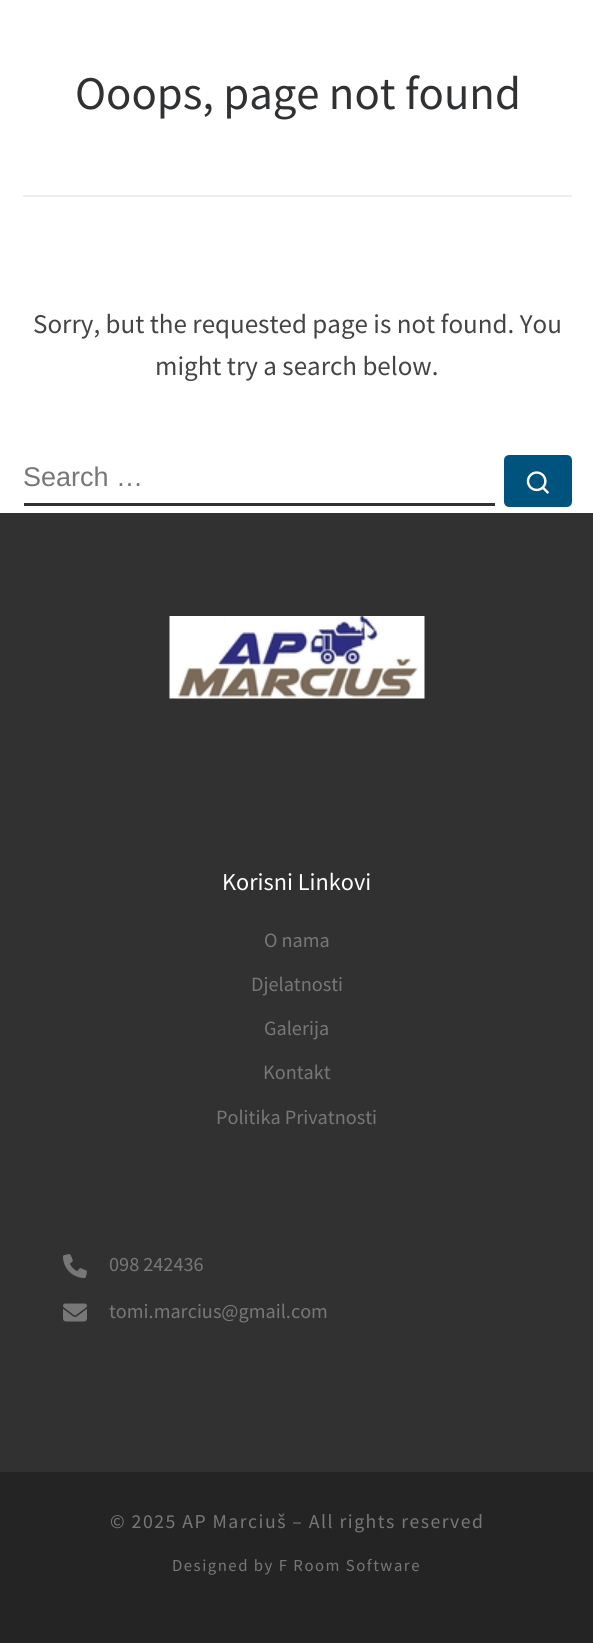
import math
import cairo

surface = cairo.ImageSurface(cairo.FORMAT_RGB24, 593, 1643)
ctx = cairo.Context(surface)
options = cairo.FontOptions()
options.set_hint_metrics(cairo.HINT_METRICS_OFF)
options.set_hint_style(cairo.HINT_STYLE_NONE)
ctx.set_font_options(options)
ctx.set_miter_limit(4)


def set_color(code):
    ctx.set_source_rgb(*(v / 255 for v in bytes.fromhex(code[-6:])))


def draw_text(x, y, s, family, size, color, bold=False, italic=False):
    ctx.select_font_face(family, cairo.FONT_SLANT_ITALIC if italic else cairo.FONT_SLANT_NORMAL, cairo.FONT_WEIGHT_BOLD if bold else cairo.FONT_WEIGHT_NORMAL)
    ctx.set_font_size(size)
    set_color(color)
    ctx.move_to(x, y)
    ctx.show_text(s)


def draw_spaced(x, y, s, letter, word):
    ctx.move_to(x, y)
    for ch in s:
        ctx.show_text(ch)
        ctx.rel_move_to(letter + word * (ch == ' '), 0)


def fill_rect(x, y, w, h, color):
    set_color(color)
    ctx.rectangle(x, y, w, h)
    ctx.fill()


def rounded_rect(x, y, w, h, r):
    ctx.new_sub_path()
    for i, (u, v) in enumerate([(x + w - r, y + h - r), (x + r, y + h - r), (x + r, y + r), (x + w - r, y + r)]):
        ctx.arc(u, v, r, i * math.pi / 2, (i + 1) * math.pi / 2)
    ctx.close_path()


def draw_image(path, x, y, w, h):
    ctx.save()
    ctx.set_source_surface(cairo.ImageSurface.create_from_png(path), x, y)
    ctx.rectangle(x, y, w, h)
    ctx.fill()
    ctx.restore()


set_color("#ffffff")
ctx.paint()
draw_text(75, 109, "Ooops, page not found", "Source Sans Pro", 46.75, "#303133")
fill_rect(23, 195, 549, 2, "#eceeef")
draw_text(33, 333, "Sorry, but the requested page is not found. You", "Source Sans Pro", 27, "#444444")
draw_text(155, 375, "might try a search below.", "Source Sans Pro", 27, "#444444")
fill_rect(24, 503, 471, 3, "#313131")
draw_text(23, 486, "Search …", "Liberation Sans", 27, "#777777")
set_color("#00537d")
rounded_rect(505.5, 456.5, 65, 49, 3.5)
ctx.fill_preserve()
ctx.set_line_width(3)
ctx.stroke()
draw_image("assets/img1.png", 526, 471, 24, 23)
fill_rect(0, 513, 593, 959, "#313131")
draw_image("assets/img2.png", 169, 616, 256, 83)
draw_text(222, 890, "Korisni Linkovi", "Source Sans Pro", 24.25, "#ffffff")
draw_text(264, 947, "O nama", "Source Sans Pro", 20.25, "#777777")
draw_text(251, 991, "Djelatnosti", "Source Sans Pro", 20.25, "#777777")
draw_text(264, 1035, "Galerija", "Source Sans Pro", 20.25, "#777777")
draw_text(263, 1079, "Kontakt", "Source Sans Pro", 20.25, "#777777")
draw_text(216, 1124, "Politika Privatnosti", "Source Sans Pro", 20.25, "#777777")
draw_image("assets/img3.png", 63, 1254, 24, 24)
draw_text(109, 1271, "098 242436", "Source Sans Pro", 20.25, "#777777")
draw_image("assets/img4.png", 63, 1303, 24, 19)
draw_text(109, 1318, "tomi.marcius@gmail.com", "Source Sans Pro", 20.25, "#777777")
fill_rect(0, 1472, 593, 171, "#242424")
ctx.set_font_size(19.7)
set_color("#777777")
draw_spaced(110, 1528, "© 2025 AP Marciuš – All rights reserved", 1.5, 0)
ctx.set_font_size(16.75)
draw_spaced(172, 1571, "Designed by F Room Software", 1.5, 0)
surface.write_to_png("output.png")
